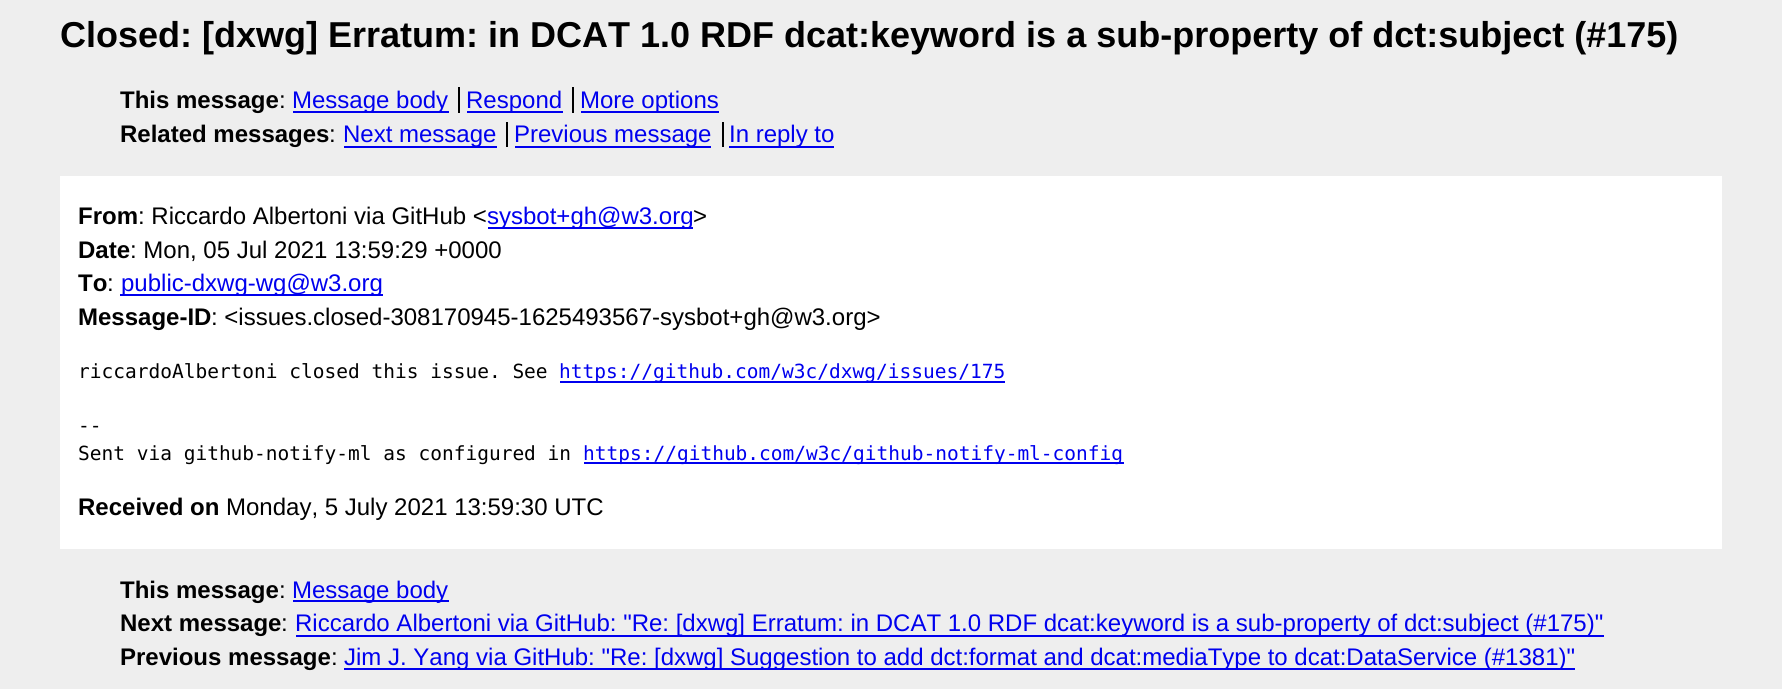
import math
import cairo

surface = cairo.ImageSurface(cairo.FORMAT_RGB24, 1782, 689)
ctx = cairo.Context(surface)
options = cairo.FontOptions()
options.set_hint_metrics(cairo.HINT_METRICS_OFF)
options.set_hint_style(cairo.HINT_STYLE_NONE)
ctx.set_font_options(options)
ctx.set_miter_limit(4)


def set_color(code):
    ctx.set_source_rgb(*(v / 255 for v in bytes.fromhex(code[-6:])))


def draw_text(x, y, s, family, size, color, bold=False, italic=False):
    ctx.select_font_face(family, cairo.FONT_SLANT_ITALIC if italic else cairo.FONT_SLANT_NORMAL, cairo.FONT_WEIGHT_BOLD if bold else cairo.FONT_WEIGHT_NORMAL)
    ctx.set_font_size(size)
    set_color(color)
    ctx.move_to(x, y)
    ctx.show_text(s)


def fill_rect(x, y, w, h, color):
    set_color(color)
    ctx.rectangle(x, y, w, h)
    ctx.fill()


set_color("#eeeeee")
ctx.paint()
draw_text(60, 47, "Closed: [dxwg] Erratum: in DCAT 1.0 RDF dcat:keyword is a sub-property of dct:subject (#175)", "Liberation Sans", 36, "#000000", bold=True)
draw_text(120, 108, "This message", "Liberation Sans", 24, "#000000", bold=True)
draw_text(279, 108, ":", "Liberation Sans", 24, "#000000")
fill_rect(293, 111, 156, 2, "#0000ee")
draw_text(292, 108, "Message body", "Liberation Sans", 24, "#0000ee")
fill_rect(467, 111, 96, 2, "#0000ee")
draw_text(466, 108, "Respond", "Liberation Sans", 24, "#0000ee")
fill_rect(458, 87, 2, 26, "#000000")
fill_rect(581, 111, 138, 2, "#0000ee")
draw_text(580, 108, "More options", "Liberation Sans", 24, "#0000ee")
fill_rect(572, 87, 2, 26, "#000000")
draw_text(120, 142, "Related messages", "Liberation Sans", 24, "#000000", bold=True)
draw_text(329, 142, ":", "Liberation Sans", 24, "#000000")
fill_rect(344, 146, 153, 2, "#0000ee")
draw_text(343, 142, "Next message", "Liberation Sans", 24, "#0000ee")
fill_rect(515, 146, 196, 2, "#0000ee")
draw_text(514, 142, "Previous message", "Liberation Sans", 24, "#0000ee")
fill_rect(506, 122, 2, 25, "#000000")
fill_rect(729, 146, 105, 2, "#0000ee")
draw_text(729, 142, "In reply to", "Liberation Sans", 24, "#0000ee")
fill_rect(722, 122, 2, 25, "#000000")
fill_rect(60, 176, 1662, 373, "#ffffff")
draw_text(78, 224, "From", "Liberation Sans", 24, "#000000", bold=True)
draw_text(138, 224, ": Riccardo Albertoni via GitHub <", "Liberation Sans", 24, "#000000")
fill_rect(488, 227, 205, 2, "#0000ee")
draw_text(487, 224, "sysbot+gh@w3.org", "Liberation Sans", 24, "#0000ee")
draw_text(693, 224, ">", "Liberation Sans", 24, "#000000")
draw_text(78, 258, "Date", "Liberation Sans", 24, "#000000", bold=True)
draw_text(130, 258, ": Mon, 05 Jul 2021 13:59:29 +0000", "Liberation Sans", 24, "#000000")
draw_text(78, 291, "To", "Liberation Sans", 24, "#000000", bold=True)
draw_text(107, 291, ":", "Liberation Sans", 24, "#000000")
fill_rect(120, 294, 263, 2, "#0000ee")
draw_text(121, 291, "public-dxwg-wg@w3.org", "Liberation Sans", 24, "#0000ee")
draw_text(78, 325, "Message-ID", "Liberation Sans", 24, "#000000", bold=True)
draw_text(211, 325, ": <issues.closed-308170945-1625493567-sysbot+gh@w3.org>", "Liberation Sans", 24, "#000000")
draw_text(78, 378, "riccardoAlbertoni closed this issue. See", "DejaVu Sans Mono", 19.5, "#000000")
fill_rect(560, 381, 445, 2, "#0000ee")
draw_text(559, 378, "https://github.com/w3c/dxwg/issues/175", "DejaVu Sans Mono", 19.5, "#0000ee")
draw_text(78, 432, "--", "DejaVu Sans Mono", 19.5, "#000000")
draw_text(78, 460, "Sent via github-notify-ml as configured in", "DejaVu Sans Mono", 19.5, "#000000")
fill_rect(584, 462, 540, 2, "#0000ee")
draw_text(583, 460, "https://github.com/w3c/github-notify-ml-config", "DejaVu Sans Mono", 19.5, "#0000ee")
draw_text(78, 515, "Received on", "Liberation Sans", 24, "#000000", bold=True)
draw_text(226, 515, "Monday, 5 July 2021 13:59:30 UTC", "Liberation Sans", 24, "#000000")
draw_text(120, 598, "This message", "Liberation Sans", 24, "#000000", bold=True)
draw_text(279, 598, ":", "Liberation Sans", 24, "#000000")
fill_rect(293, 600, 156, 2, "#0000ee")
draw_text(292, 598, "Message body", "Liberation Sans", 24, "#0000ee")
draw_text(120, 631, "Next message", "Liberation Sans", 24, "#000000", bold=True)
draw_text(281, 631, ":", "Liberation Sans", 24, "#000000")
fill_rect(296, 635, 1308, 2, "#0000ee")
draw_text(295, 631, "Riccardo Albertoni via GitHub: \"Re: [dxwg] Erratum: in DCAT 1.0 RDF dcat:keyword is a sub-property of dct:subject (#175)\"", "Liberation Sans", 24, "#0000ee")
draw_text(120, 665, "Previous message", "Liberation Sans", 24, "#000000", bold=True)
draw_text(331, 665, ":", "Liberation Sans", 24, "#000000")
fill_rect(344, 668, 1231, 2, "#0000ee")
draw_text(344, 665, "Jim J. Yang via GitHub: \"Re: [dxwg] Suggestion to add dct:format and dcat:mediaType to dcat:DataService (#1381)\"", "Liberation Sans", 24, "#0000ee")
surface.write_to_png("output.png")
